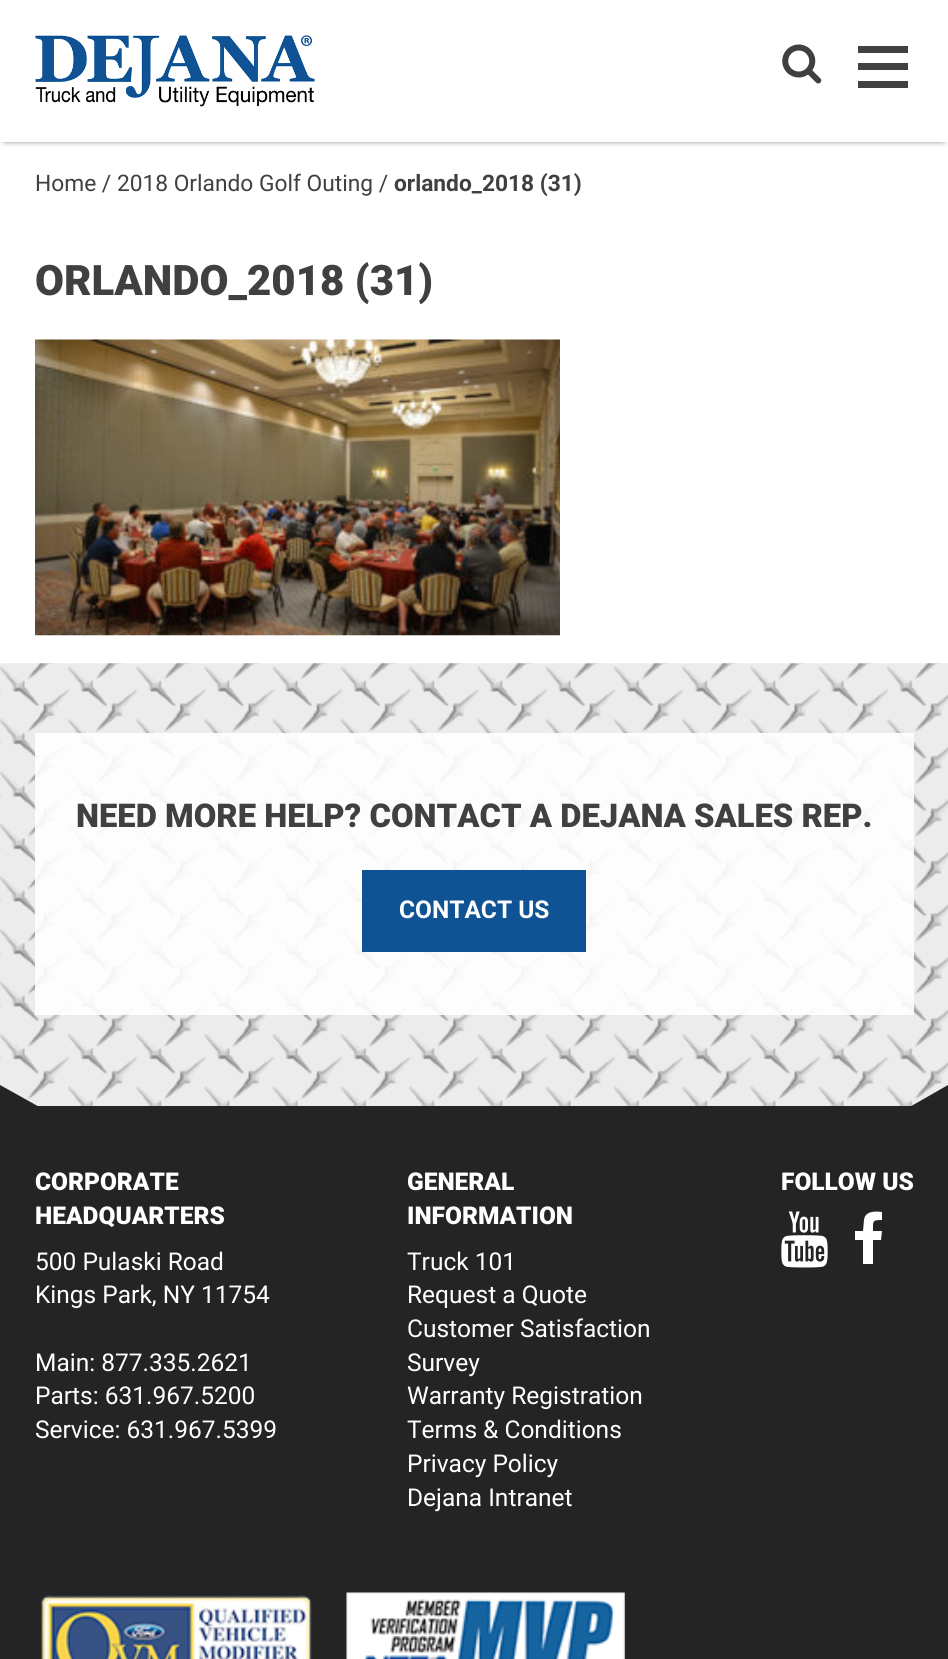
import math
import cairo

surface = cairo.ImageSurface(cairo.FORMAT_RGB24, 948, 1659)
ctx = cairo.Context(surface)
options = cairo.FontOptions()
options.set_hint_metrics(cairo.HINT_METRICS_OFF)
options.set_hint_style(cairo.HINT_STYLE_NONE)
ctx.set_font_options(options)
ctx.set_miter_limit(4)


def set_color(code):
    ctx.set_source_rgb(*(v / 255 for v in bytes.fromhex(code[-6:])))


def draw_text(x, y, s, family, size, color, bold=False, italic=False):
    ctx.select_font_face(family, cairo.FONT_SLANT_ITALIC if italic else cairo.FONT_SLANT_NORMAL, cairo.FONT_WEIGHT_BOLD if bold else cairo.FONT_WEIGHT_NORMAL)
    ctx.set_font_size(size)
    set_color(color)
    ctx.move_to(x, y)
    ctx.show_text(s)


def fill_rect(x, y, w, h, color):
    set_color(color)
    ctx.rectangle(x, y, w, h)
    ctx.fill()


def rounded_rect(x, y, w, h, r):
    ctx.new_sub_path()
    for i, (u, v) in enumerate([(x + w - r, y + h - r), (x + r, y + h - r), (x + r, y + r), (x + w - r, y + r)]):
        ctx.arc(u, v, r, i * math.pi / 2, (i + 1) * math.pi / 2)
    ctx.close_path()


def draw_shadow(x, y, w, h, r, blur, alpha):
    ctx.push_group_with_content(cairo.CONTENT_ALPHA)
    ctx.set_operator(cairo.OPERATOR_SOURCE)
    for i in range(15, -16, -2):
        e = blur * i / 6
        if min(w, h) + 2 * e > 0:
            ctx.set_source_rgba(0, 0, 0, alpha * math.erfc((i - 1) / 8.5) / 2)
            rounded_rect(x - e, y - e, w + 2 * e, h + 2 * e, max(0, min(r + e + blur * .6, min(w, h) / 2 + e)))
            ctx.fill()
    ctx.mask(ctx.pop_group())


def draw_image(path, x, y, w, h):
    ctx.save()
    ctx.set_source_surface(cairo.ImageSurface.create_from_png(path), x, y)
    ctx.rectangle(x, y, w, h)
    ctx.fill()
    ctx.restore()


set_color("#ffffff")
ctx.paint()
ctx.save()
ctx.set_fill_rule(cairo.FILL_RULE_EVEN_ODD)
ctx.new_path()
ctx.move_to(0, 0)
ctx.line_to(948, 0)
ctx.line_to(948, 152)
ctx.line_to(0, 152)
ctx.close_path()
ctx.move_to(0, 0)
ctx.line_to(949, 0)
ctx.line_to(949, 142)
ctx.line_to(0, 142)
ctx.close_path()
ctx.clip()
set_color("#333333")
draw_shadow(5, 9, 938, 131, 0, 3.5, 1)
ctx.restore()
draw_image("assets/img1.png", 35, 35, 280, 72)
draw_image("assets/img2.png", 782, 44, 40, 40)
fill_rect(858, 46, 50, 7, "#414141")
fill_rect(858, 63, 50, 7, "#414141")
fill_rect(858, 81, 50, 7, "#414141")
draw_text(35, 191, "Home / 2018 Orlando Golf Outing /", "Roboto", 22.75, "#404040")
draw_text(394, 191, "orlando_2018 (31)", "Roboto", 22.75, "#404040", bold=True)
draw_text(35, 295, "ORLANDO_2018 (31)", "Roboto Black", 42, "#404040")
draw_image("assets/img3.png", 35, 339, 525, 297)
draw_image("assets/img4.png", 0, 663, 948, 443)
ctx.set_source_rgba(1, 1, 1, 0.9)
ctx.rectangle(35, 733, 879, 282)
ctx.fill()
draw_text(76, 827, "NEED MORE HELP? CONTACT A DEJANA SALES REP.", "Roboto Black", 32.75, "#404040")
fill_rect(362, 870, 224, 82, "#105395")
draw_text(399, 918, "CONTACT US", "Roboto", 24.5, "#ffffff", bold=True)
fill_rect(0, 1106, 948, 553, "#242424")
ctx.new_path()
ctx.move_to(0, 1085)
ctx.line_to(43, 1109)
ctx.line_to(33, 1127)
ctx.line_to(-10, 1103)
ctx.close_path()
ctx.fill()
ctx.new_path()
ctx.move_to(906, 1109)
ctx.line_to(948, 1085)
ctx.line_to(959, 1103)
ctx.line_to(916, 1127)
ctx.close_path()
ctx.fill()
draw_text(35, 1190, "CORPORATE", "Roboto Black", 24.5, "#ffffff")
draw_text(35, 1224, "HEADQUARTERS", "Roboto Black", 24.5, "#ffffff")
draw_text(35, 1270, "500 Pulaski Road", "Roboto", 24.5, "#ffffff")
draw_text(35, 1303, "Kings Park, NY 11754", "Roboto", 24.5, "#ffffff")
draw_text(35, 1371, "Main: 877.335.2621", "Roboto", 24.5, "#ffffff")
draw_text(35, 1404, "Parts: 631.967.5200", "Roboto", 24.5, "#ffffff")
draw_text(35, 1438, "Service: 631.967.5399", "Roboto", 24.5, "#ffffff")
draw_text(407, 1190, "GENERAL", "Roboto Black", 24.5, "#ffffff")
draw_text(407, 1224, "INFORMATION", "Roboto Black", 24.5, "#ffffff")
draw_text(407, 1270, "Truck 101", "Roboto", 24.5, "#ffffff")
draw_text(407, 1303, "Request a Quote", "Roboto", 24.5, "#ffffff")
draw_text(407, 1337, "Customer Satisfaction", "Roboto", 24.5, "#ffffff")
draw_text(407, 1371, "Survey", "Roboto", 24.5, "#ffffff")
draw_text(407, 1404, "Warranty Registration", "Roboto", 24.5, "#ffffff")
draw_text(407, 1438, "Terms & Conditions", "Roboto", 24.5, "#ffffff")
draw_text(407, 1472, "Privacy Policy", "Roboto", 24.5, "#ffffff")
draw_text(407, 1506, "Dejana Intranet", "Roboto", 24.5, "#ffffff")
draw_text(781, 1190, "FOLLOW US", "Roboto Black", 24.5, "#ffffff")
draw_image("assets/img5.png", 781, 1211, 47, 57)
ctx.new_path()
ctx.move_to(882, 1212)
ctx.line_to(882, 1220)
ctx.curve_to(872, 1220, 873, 1221, 873, 1231)
ctx.line_to(882, 1231)
ctx.line_to(881, 1240)
ctx.line_to(873, 1240)
ctx.line_to(873, 1264)
ctx.line_to(863, 1264)
ctx.line_to(863, 1240)
ctx.line_to(855, 1240)
ctx.line_to(855, 1231)
ctx.line_to(863, 1231)
ctx.line_to(864, 1220)
ctx.curve_to(865, 1211, 875, 1211, 882, 1212)
ctx.close_path()
ctx.fill()
draw_image("assets/img6.png", 40, 1595, 272, 64)
draw_image("assets/img7.png", 346, 1592, 279, 67)
surface.write_to_png("output.png")
